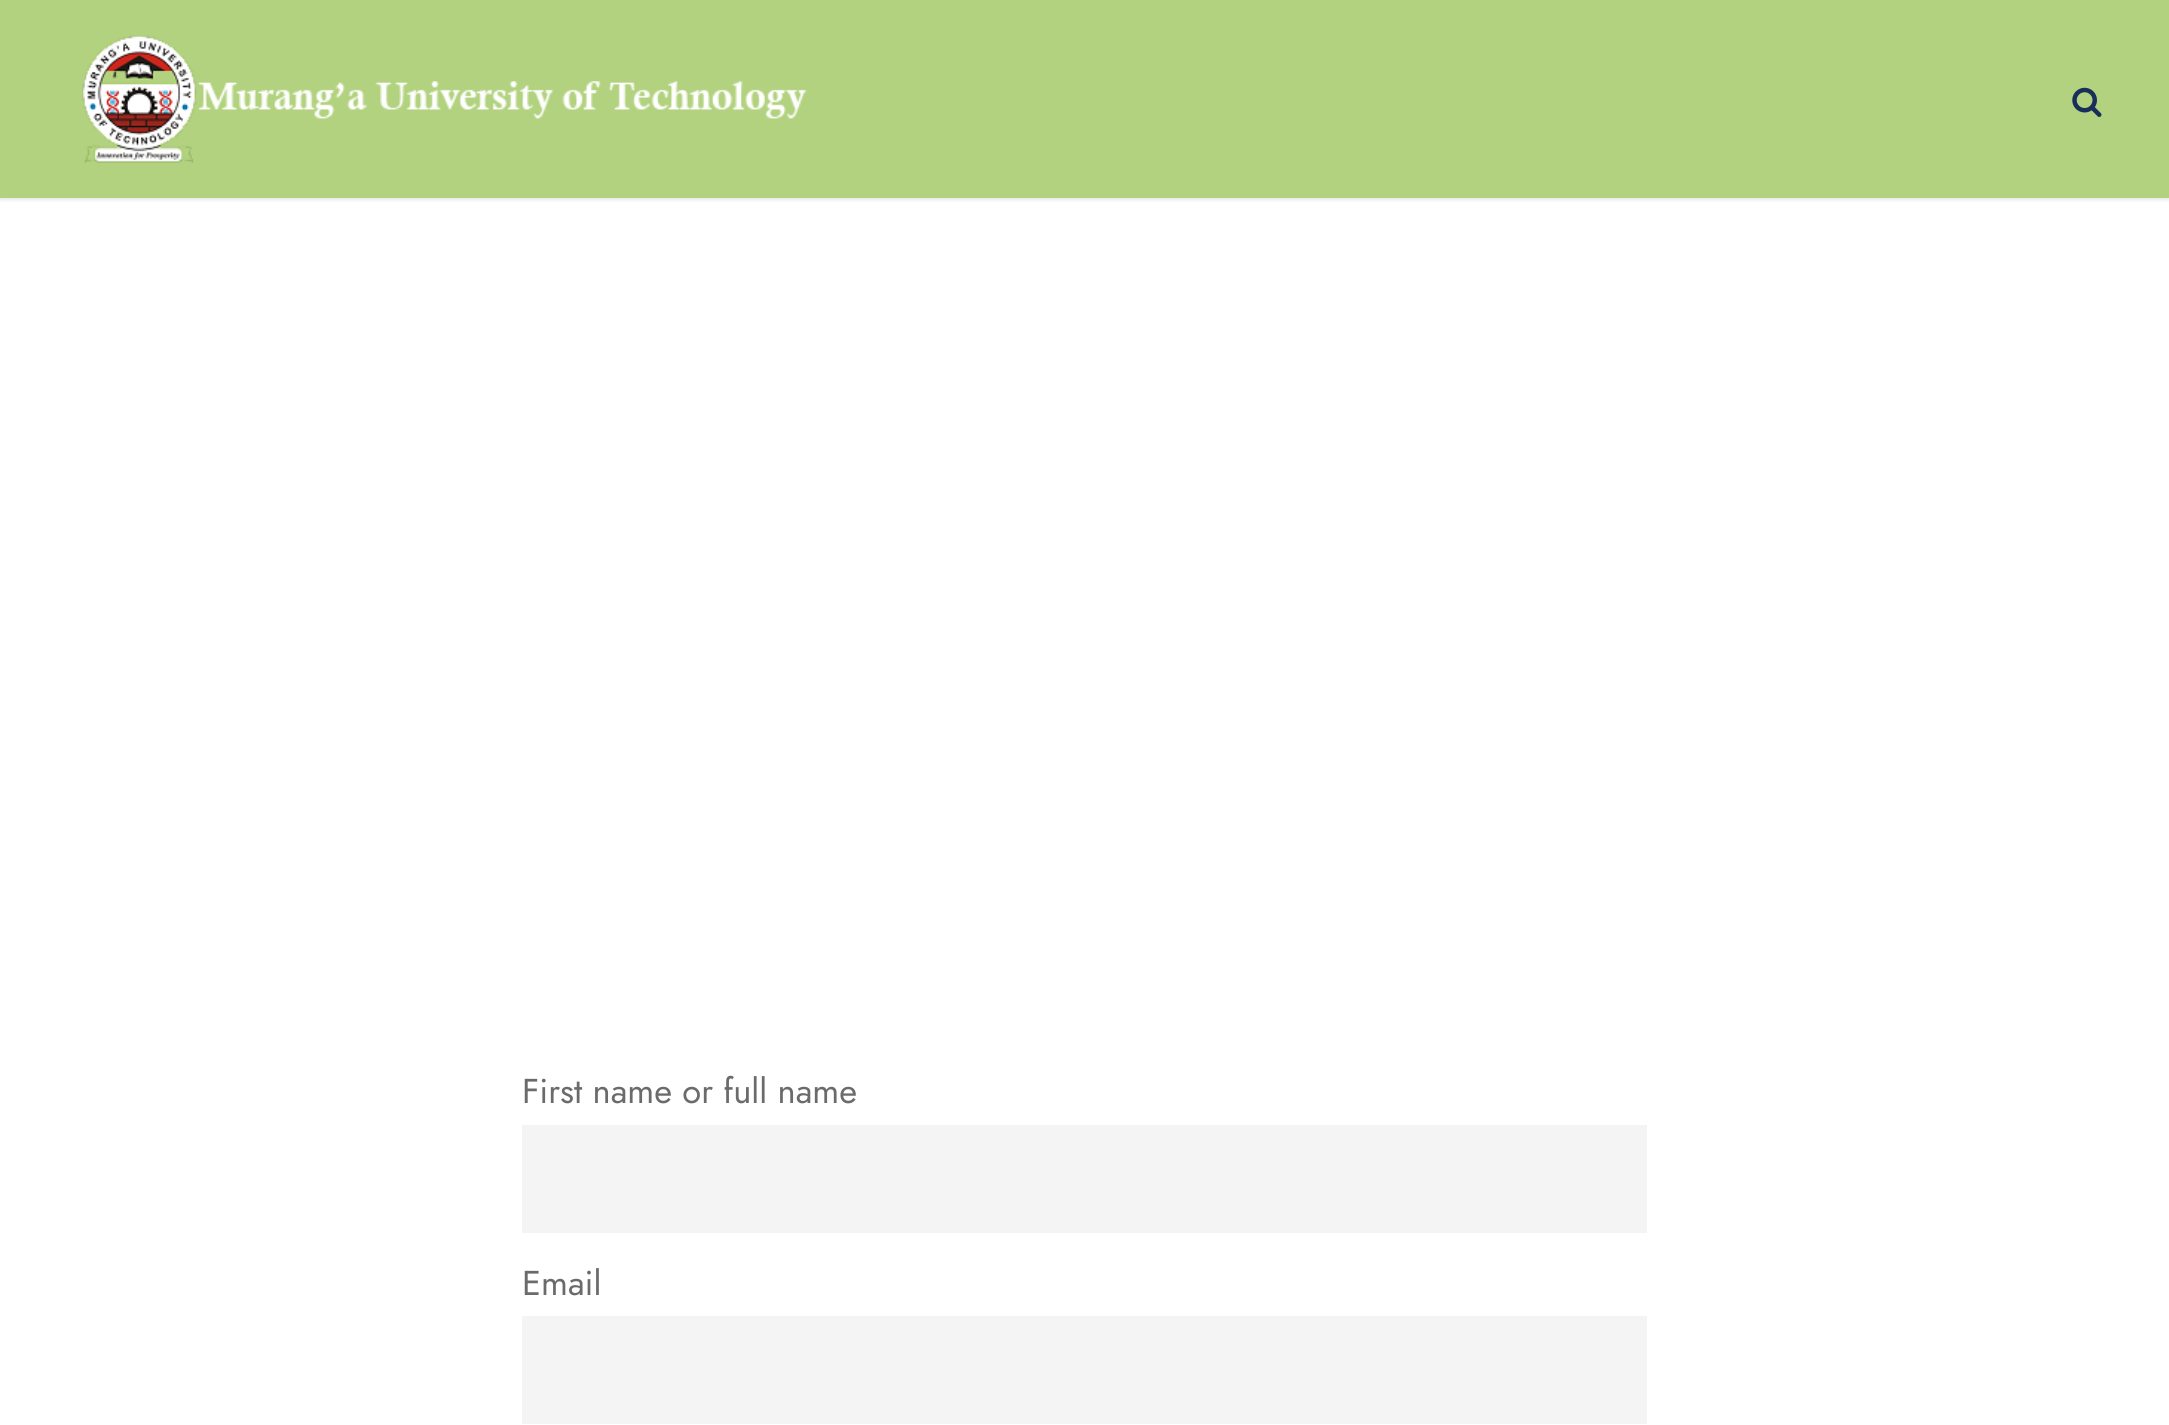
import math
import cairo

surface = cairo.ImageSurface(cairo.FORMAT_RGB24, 2169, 1425)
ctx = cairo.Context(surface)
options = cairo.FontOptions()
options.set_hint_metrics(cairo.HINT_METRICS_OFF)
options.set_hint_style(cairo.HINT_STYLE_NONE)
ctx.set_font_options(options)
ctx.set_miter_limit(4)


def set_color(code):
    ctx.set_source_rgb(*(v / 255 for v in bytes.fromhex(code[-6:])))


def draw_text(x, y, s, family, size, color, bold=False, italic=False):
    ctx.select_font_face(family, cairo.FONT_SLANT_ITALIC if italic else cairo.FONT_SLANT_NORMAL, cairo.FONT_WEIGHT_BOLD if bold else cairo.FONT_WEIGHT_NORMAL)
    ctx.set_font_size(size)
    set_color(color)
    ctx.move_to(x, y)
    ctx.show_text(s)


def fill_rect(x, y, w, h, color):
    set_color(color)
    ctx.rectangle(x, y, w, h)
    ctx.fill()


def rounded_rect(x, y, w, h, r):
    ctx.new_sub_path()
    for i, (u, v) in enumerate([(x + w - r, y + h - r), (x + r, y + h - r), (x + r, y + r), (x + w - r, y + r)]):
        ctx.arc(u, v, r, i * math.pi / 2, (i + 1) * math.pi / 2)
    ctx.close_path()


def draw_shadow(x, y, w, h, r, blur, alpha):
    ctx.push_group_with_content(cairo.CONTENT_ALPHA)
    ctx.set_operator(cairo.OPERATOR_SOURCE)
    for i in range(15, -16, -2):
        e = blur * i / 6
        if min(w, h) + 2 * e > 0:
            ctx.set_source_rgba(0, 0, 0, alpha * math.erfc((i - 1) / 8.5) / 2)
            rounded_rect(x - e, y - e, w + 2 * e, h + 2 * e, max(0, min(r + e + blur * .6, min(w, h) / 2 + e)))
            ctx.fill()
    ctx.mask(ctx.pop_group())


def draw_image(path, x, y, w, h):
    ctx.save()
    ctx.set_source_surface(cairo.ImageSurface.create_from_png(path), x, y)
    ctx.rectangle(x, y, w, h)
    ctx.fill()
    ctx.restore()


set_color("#ffffff")
ctx.paint()
set_color("#000000")
draw_shadow(0, 2, 2169, 198, 0, 2, 0.1)
fill_rect(0, 0, 2169, 198, "#b2d27f")
draw_image("assets/img1.png", 82, 35, 725, 128)
draw_image("assets/img2.png", 2072, 87, 30, 30)
draw_text(522, 1103, "First name or full name", "Jost", 34.5, "#6b6b6b")
fill_rect(522, 1125, 1125, 108, "#f4f4f4")
draw_text(522, 1295, "Email", "Jost", 34.5, "#6b6b6b")
fill_rect(522, 1316, 1125, 108, "#f4f4f4")
surface.write_to_png("output.png")
